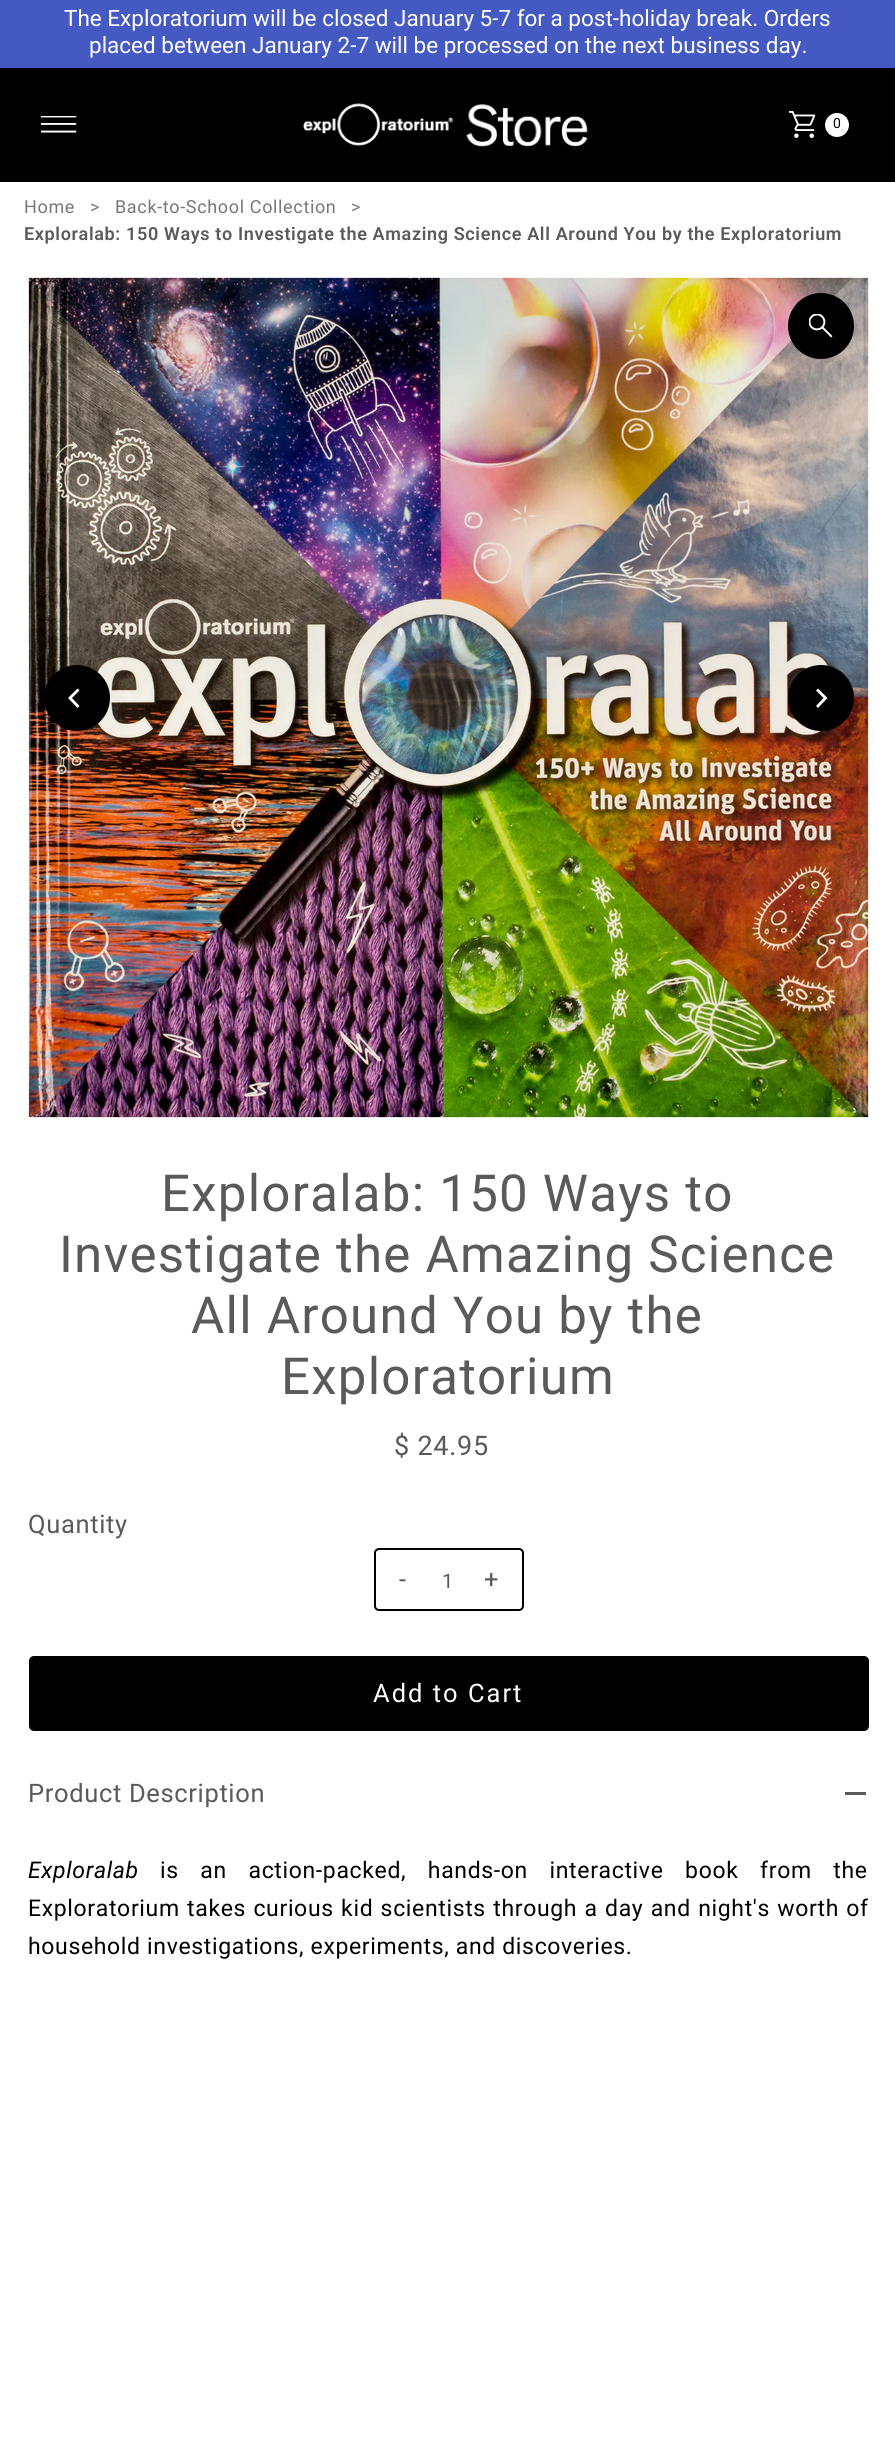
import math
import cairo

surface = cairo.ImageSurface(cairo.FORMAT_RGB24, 895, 2459)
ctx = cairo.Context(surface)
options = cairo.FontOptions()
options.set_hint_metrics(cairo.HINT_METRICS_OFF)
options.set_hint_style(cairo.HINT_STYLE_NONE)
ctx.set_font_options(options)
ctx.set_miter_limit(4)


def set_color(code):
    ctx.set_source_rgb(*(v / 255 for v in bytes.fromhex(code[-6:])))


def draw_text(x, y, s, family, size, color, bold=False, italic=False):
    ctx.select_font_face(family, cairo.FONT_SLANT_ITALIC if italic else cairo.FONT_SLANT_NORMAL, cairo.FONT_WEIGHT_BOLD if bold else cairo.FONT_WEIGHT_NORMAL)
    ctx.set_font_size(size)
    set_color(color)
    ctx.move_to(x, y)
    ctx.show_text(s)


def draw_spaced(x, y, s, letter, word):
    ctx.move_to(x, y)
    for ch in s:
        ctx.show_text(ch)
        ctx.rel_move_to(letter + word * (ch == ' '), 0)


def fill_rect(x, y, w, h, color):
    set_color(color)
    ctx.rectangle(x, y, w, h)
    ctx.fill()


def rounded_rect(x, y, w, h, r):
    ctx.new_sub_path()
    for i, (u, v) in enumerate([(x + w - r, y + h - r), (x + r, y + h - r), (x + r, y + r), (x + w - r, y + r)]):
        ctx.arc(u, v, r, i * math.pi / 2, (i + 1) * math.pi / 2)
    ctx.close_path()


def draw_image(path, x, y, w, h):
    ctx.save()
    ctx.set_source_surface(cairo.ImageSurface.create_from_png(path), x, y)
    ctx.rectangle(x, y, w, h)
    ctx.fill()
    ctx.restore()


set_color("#ffffff")
ctx.paint()
fill_rect(0, 0, 895, 68, "#4459c1")
draw_text(64, 26, "The Exploratorium will be closed January 5-7 for a post-holiday break. Orders", "Roboto", 22.5, "#ffffff")
draw_text(89, 53, "placed between January 2-7 will be processed on the next business day.", "Roboto", 22.5, "#ffffff")
fill_rect(0, 68, 895, 114, "#000000")
draw_image("assets/img1.png", 41, 116, 36, 17)
draw_image("assets/img2.png", 303, 103, 285, 44)
draw_image("assets/img3.png", 789, 111, 27, 27)
set_color("#ffffff")
ctx.arc(837, 125, 12, 0, 2 * math.pi)
ctx.fill()
draw_text(833, 128, "0", "Roboto", 14, "#000000")
ctx.set_font_size(18)
set_color("#787878")
draw_spaced(24, 213, "Home", 0.65, 0)
draw_spaced(90, 213, ">", 0.65, 0)
draw_spaced(115, 213, "Back-to-School Collection", 0.65, 0)
draw_spaced(351, 213, ">", 0.65, 0)
ctx.select_font_face("Roboto SemiBold")
set_color("#5a5a5a")
draw_spaced(24, 240, "Exploralab: 150 Ways to Investigate the Amazing Science All Around You by the Exploratorium", 0.65, 0)
draw_image("assets/img4.png", 28, 277, 841, 841)
set_color("#000000")
ctx.arc(821, 326, 33, 0, 2 * math.pi)
ctx.fill()
draw_image("assets/img5.png", 809, 314, 24, 24)
ctx.arc(77, 698, 33, 0, 2 * math.pi)
ctx.fill()
set_color("#ffffff")
ctx.new_path()
ctx.move_to(68, 698)
ctx.line_to(77.5, 708)
ctx.line_to(79.5, 706)
ctx.line_to(72, 698)
ctx.line_to(79.5, 690.5)
ctx.line_to(77.5, 688.5)
ctx.close_path()
ctx.fill()
set_color("#000000")
ctx.arc(821, 698, 33, 0, 2 * math.pi)
ctx.fill()
set_color("#ffffff")
ctx.new_path()
ctx.move_to(827.5, 698)
ctx.line_to(818, 688.5)
ctx.line_to(816, 690.5)
ctx.line_to(823.5, 698)
ctx.line_to(816, 706)
ctx.line_to(818, 708)
ctx.close_path()
ctx.fill()
ctx.select_font_face("Roboto")
ctx.set_font_size(51)
set_color("#5a5a5a")
draw_spaced(161, 1211, "Exploralab: 150 Ways to", 1.25, 0)
draw_spaced(59, 1272, "Investigate the Amazing Science", 1.25, 0)
draw_spaced(191, 1333, "All Around You by the", 1.25, 0)
draw_spaced(281, 1394, "Exploratorium", 1.25, 0)
ctx.set_font_size(27)
draw_spaced(394, 1455, "$ 24.95", 0.75, 0)
ctx.set_font_size(25.5)
draw_spaced(28, 1533, "Quantity", 0.65, 0)
rounded_rect(375, 1549, 148, 61, 4)
set_color("#000000")
ctx.stroke()
set_color("#5a5a5a")
draw_spaced(399, 1588, "-", 2, 0)
draw_text(442, 1588, "1", "Roboto", 20, "#5a5a5a")
ctx.set_font_size(25.5)
draw_spaced(484, 1588, "+", 2, 0)
set_color("#000000")
rounded_rect(29, 1656, 840, 75, 5)
ctx.fill()
set_color("#ffffff")
draw_spaced(373, 1702, "Add to Cart", 2, 0)
set_color("#5a5a5a")
draw_spaced(28, 1802, "Product Description", 0.65, 0)
fill_rect(845, 1792, 21, 3, "#5a5a5a")
ctx.select_font_face("Roboto", cairo.FONT_SLANT_ITALIC)
ctx.set_font_size(23)
set_color("#000000")
draw_spaced(28, 1878, "Exploralab", 0.65, 0)
ctx.select_font_face("Roboto")
draw_spaced(160, 1878, "is an action-packed, hands-on interactive book from the", 0.65, 15.25)
draw_spaced(28, 1916, "Exploratorium takes curious kid scientists through a day and night's worth of", 0.65, 1)
draw_spaced(28, 1954, "household investigations, experiments, and discoveries.", 0.65, 0)
surface.write_to_png("output.png")
